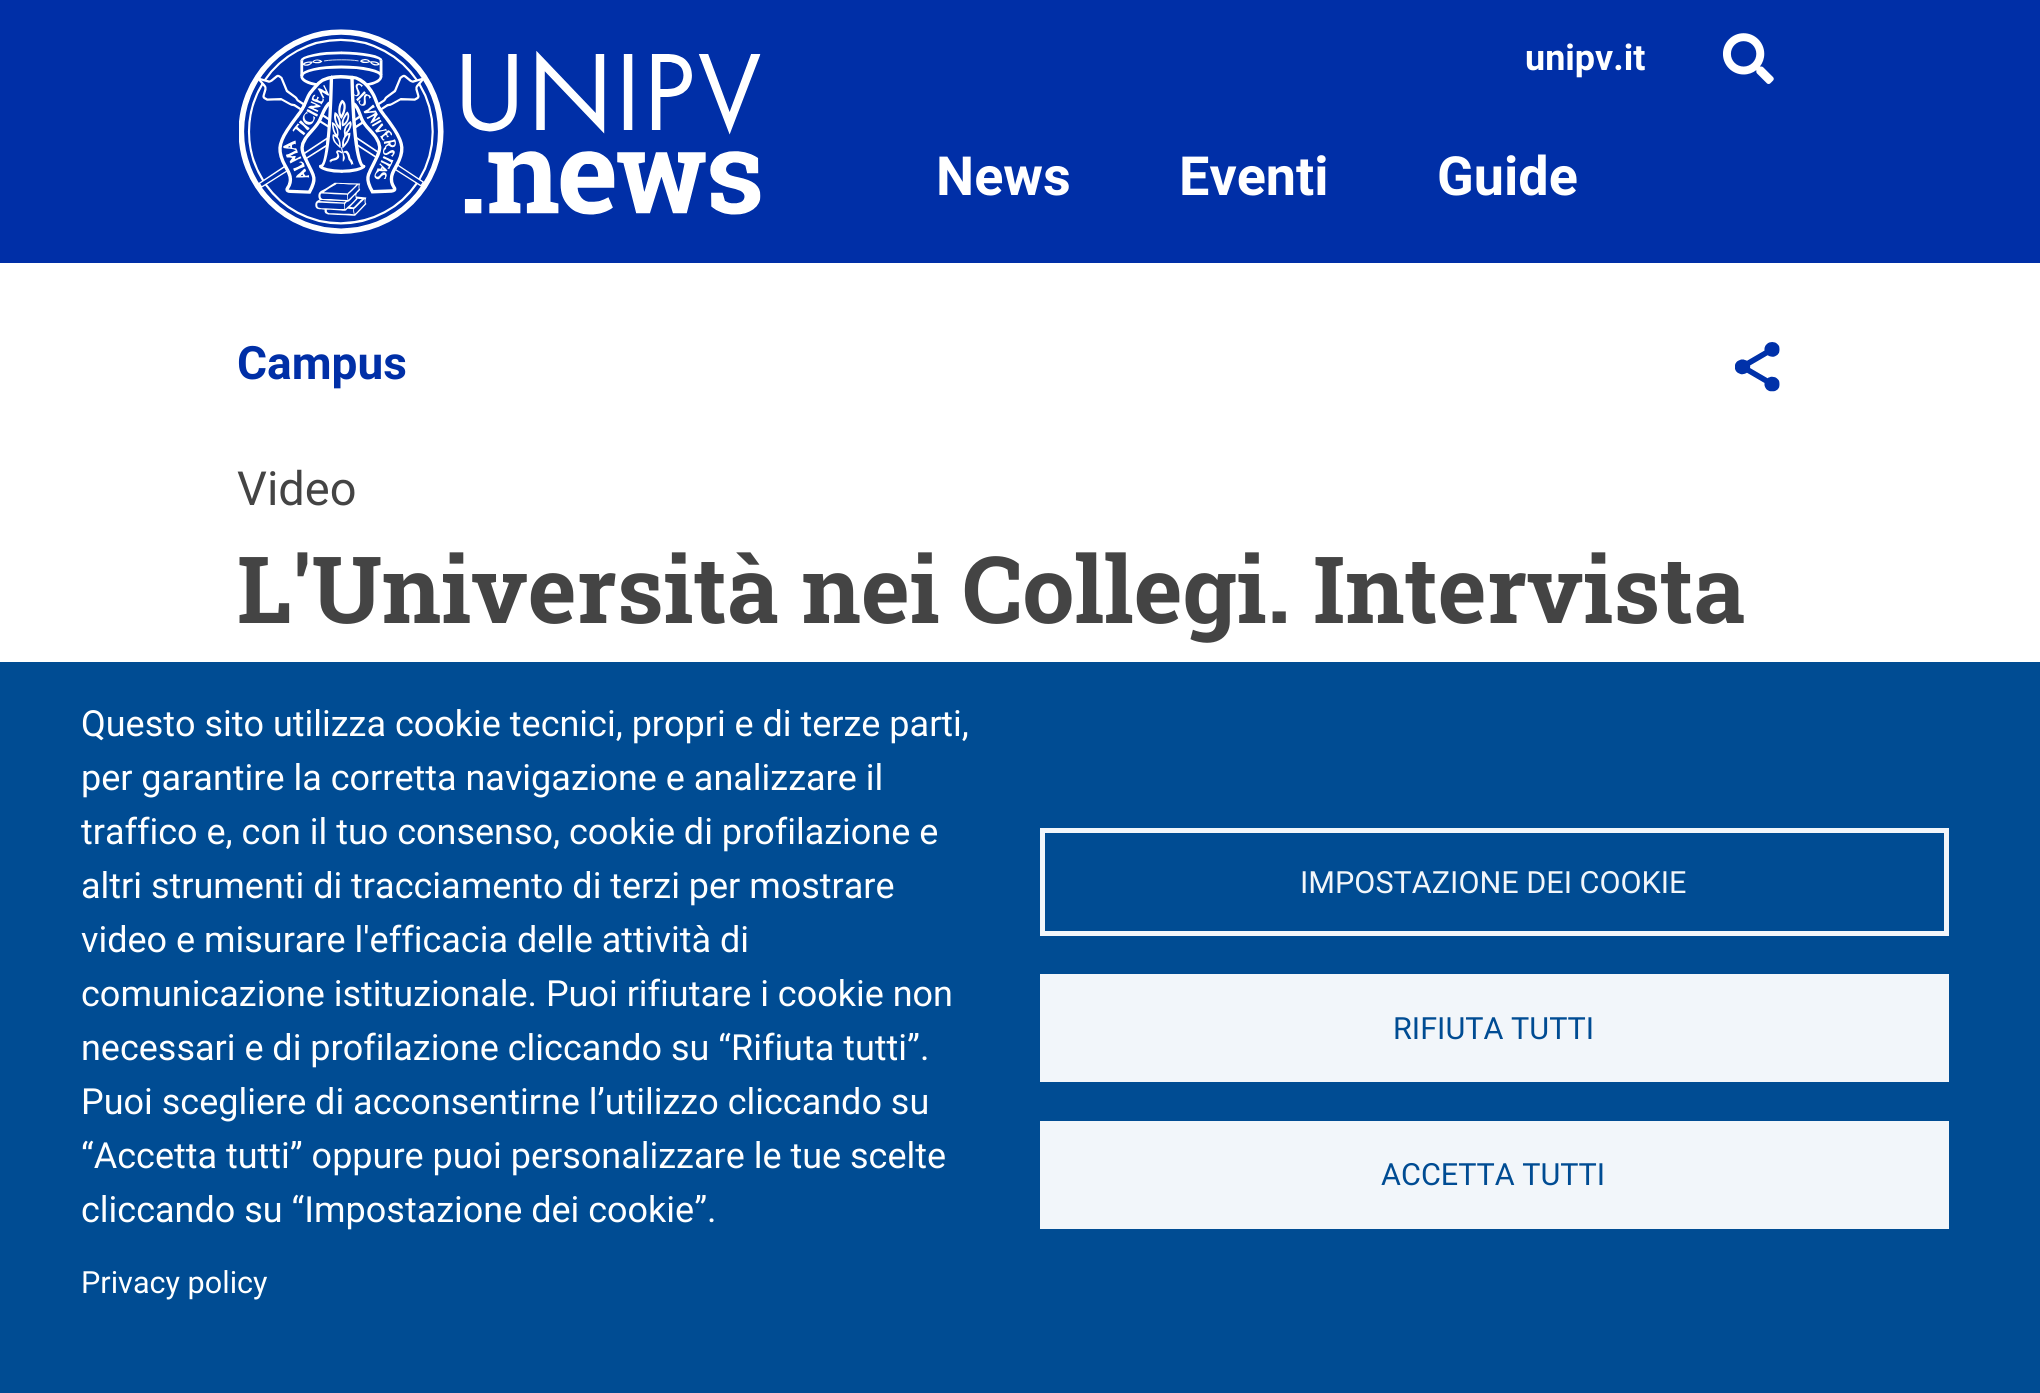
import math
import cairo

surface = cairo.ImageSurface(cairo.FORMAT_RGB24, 2040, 1393)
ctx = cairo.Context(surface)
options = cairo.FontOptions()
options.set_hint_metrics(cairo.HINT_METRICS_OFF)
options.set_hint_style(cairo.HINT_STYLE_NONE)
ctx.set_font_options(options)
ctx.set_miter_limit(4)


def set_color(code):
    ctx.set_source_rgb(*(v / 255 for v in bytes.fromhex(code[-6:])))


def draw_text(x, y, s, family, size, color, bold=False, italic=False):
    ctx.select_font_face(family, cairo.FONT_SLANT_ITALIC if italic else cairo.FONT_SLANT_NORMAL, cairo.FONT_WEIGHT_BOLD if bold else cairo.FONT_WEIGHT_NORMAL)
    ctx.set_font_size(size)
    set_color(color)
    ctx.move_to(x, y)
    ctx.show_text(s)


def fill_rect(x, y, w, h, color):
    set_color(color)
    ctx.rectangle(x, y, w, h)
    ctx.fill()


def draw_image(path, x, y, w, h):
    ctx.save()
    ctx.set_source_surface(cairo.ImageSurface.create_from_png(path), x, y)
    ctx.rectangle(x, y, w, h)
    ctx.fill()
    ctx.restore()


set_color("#ffffff")
ctx.paint()
fill_rect(0, 0, 2040, 263, "#002fa7")
draw_image("assets/img1.png", 239, 29, 522, 205)
draw_text(1525, 70, "unipv.it", "Roboto", 36, "#ffffff", bold=True)
draw_image("assets/img2.png", 1723, 33, 51, 51)
draw_text(936, 195, "News", "Roboto", 54, "#ffffff", bold=True)
draw_text(1179, 195, "Eventi", "Roboto", 54, "#ffffff", bold=True)
draw_text(1437, 195, "Guide", "Roboto", 54, "#ffffff", bold=True)
fill_rect(0, 662, 2040, 731, "#004c93")
draw_text(81, 736, "Questo sito utilizza cookie tecnici, propri e di terze parti,", "Roboto", 36, "#ffffff")
draw_text(81, 790, "per garantire la corretta navigazione e analizzare il", "Roboto", 36, "#ffffff")
draw_text(81, 844, "traffico e, con il tuo consenso, cookie di profilazione e", "Roboto", 36, "#ffffff")
draw_text(81, 898, "altri strumenti di tracciamento di terzi per mostrare", "Roboto", 36, "#ffffff")
draw_text(81, 952, "video e misurare l'efficacia delle attività di", "Roboto", 36, "#ffffff")
draw_text(81, 1006, "comunicazione istituzionale. Puoi rifiutare i cookie non", "Roboto", 36, "#ffffff")
draw_text(81, 1060, "necessari e di profilazione cliccando su “Rifiuta tutti”.", "Roboto", 36, "#ffffff")
draw_text(81, 1114, "Puoi scegliere di acconsentirne l’utilizzo cliccando su", "Roboto", 36, "#ffffff")
draw_text(81, 1168, "“Accetta tutti” oppure puoi personalizzare le tue scelte", "Roboto", 36, "#ffffff")
draw_text(81, 1222, "cliccando su “Impostazione dei cookie”.", "Roboto", 36, "#ffffff")
draw_text(81, 1293, "Privacy policy", "Roboto", 30.6, "#ffffff")
ctx.rectangle(1042.5, 830.5, 904, 103)
set_color("#f2f6fa")
ctx.set_line_width(5)
ctx.stroke()
draw_text(1300, 893, "IMPOSTAZIONE DEI COOKIE", "Roboto", 30.6, "#f2f6fa")
fill_rect(1040, 974, 909, 108, "#f2f6fa")
draw_text(1393, 1039, "RIFIUTA TUTTI", "Roboto", 30.6, "#004c93")
fill_rect(1040, 1121, 909, 108, "#f2f6fa")
draw_text(1381, 1185, "ACCETTA TUTTI", "Roboto", 30.6, "#004c93")
draw_text(237, 379, "Campus", "Roboto", 46, "#002fa7", bold=True)
draw_text(237, 505, "Video", "Roboto", 47, "#444444")
draw_text(237, 623, "L'Università nei Collegi. Intervista", "Roboto Slab", 92.75, "#444444", bold=True)
draw_image("assets/img3.png", 1735, 342, 45, 50)
surface.write_to_png("output.png")
